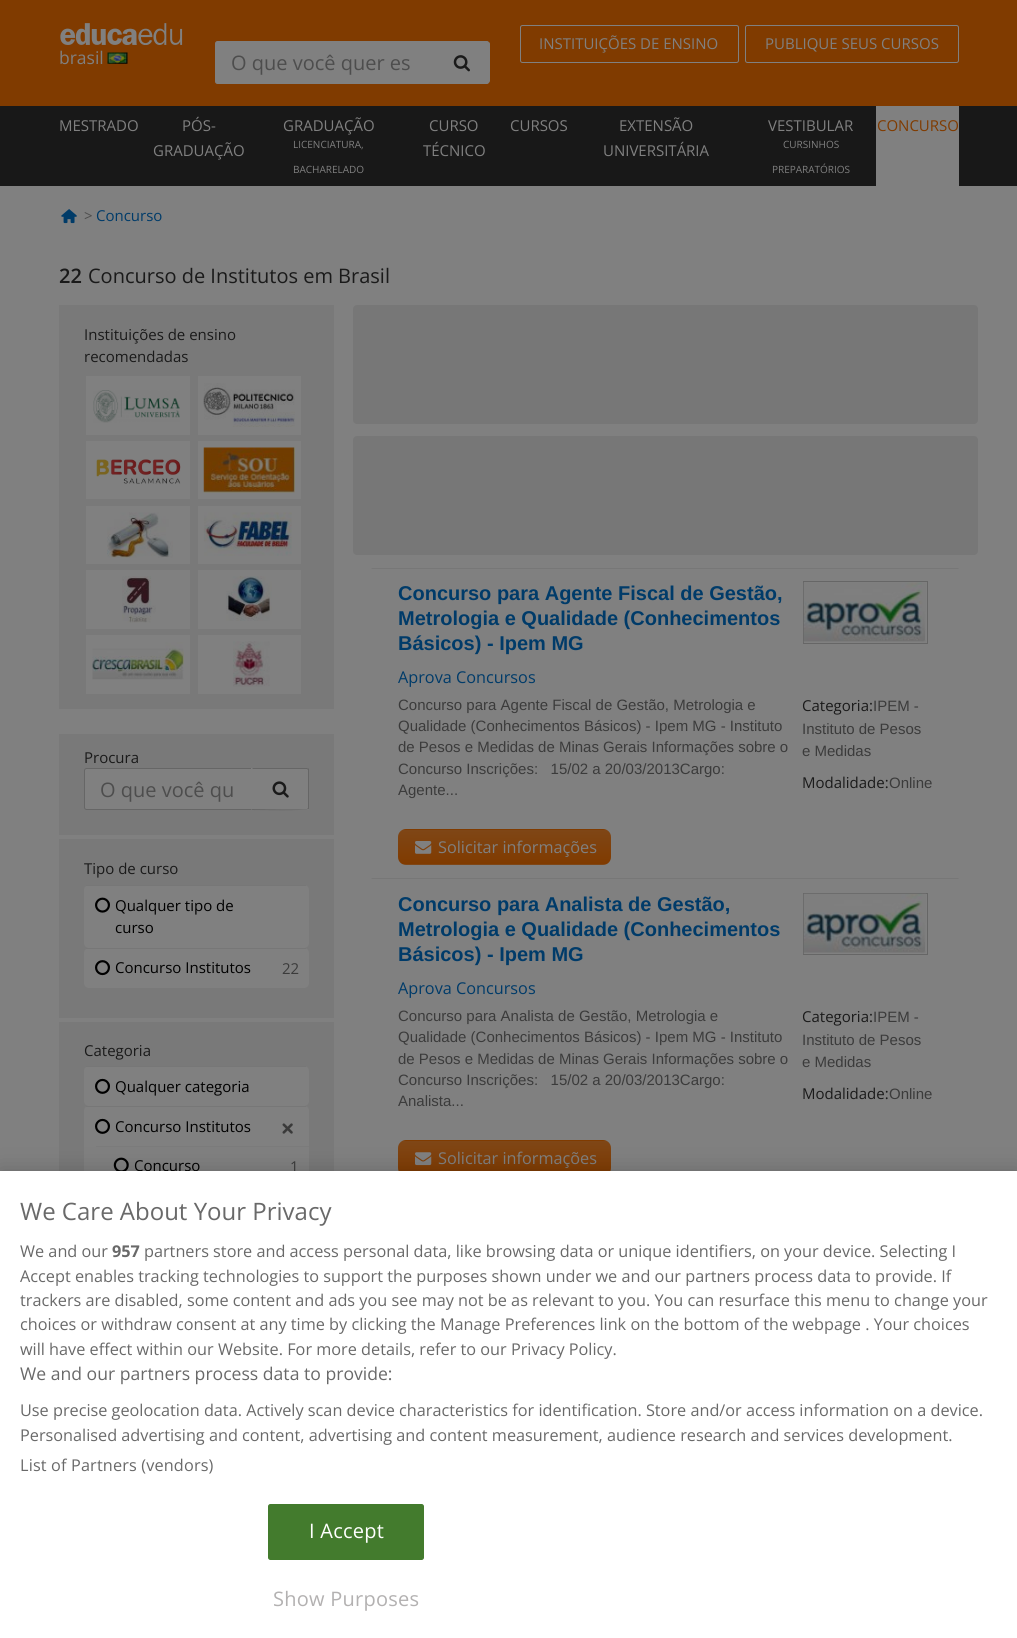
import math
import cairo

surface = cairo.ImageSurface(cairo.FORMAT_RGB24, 1017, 1638)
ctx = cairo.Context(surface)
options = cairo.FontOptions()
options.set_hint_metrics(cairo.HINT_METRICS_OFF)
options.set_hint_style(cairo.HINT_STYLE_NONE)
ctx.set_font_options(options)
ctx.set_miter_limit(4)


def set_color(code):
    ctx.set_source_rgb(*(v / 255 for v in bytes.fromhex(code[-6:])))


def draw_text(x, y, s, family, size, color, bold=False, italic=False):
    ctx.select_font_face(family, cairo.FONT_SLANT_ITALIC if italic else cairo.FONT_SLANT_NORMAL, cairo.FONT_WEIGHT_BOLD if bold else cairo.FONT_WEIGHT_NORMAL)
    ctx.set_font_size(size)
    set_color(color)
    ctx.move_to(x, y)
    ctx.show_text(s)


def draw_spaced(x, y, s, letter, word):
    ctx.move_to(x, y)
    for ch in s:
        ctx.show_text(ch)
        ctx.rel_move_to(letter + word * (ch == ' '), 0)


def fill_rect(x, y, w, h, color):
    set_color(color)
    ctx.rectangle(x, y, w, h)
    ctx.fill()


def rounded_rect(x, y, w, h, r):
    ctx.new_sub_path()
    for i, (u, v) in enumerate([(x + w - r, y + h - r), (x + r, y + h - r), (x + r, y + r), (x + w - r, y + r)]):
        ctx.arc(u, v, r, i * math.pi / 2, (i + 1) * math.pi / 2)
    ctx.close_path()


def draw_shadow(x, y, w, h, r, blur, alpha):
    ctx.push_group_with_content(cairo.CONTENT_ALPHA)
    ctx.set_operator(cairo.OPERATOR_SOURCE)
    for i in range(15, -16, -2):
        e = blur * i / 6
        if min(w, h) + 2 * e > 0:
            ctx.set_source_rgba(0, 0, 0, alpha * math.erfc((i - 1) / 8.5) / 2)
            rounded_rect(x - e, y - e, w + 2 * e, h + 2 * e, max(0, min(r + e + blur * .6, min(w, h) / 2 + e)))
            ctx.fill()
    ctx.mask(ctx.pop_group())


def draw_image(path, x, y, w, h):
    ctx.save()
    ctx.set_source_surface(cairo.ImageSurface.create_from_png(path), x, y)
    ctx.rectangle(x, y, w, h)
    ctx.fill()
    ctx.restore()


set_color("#808080")
ctx.paint()
fill_rect(0, 0, 1017, 106, "#803b00")
rounded_rect(520.5, 25.5, 218, 37, 2)
set_color("#808080")
ctx.set_line_width(1)
ctx.stroke()
draw_text(539, 49, "INSTITUIÇÕES DE ENSINO", "Open Sans", 15, "#808080")
rounded_rect(745.5, 25.5, 213, 37, 2)
ctx.stroke()
draw_text(765, 49, "PUBLIQUE SEUS CURSOS", "Open Sans", 15, "#808080")
draw_image("assets/img1.png", 60, 23, 123, 22)
draw_text(59, 64, "brasil", "Open Sans", 17.5, "#808080")
draw_image("assets/img2.png", 107, 52, 21, 12)
ctx.new_path()
ctx.move_to(217.5, 41.5)
ctx.line_to(433.5, 41.5)
ctx.line_to(433.5, 83.5)
ctx.line_to(217.5, 83.5)
ctx.curve_to(216.5, 83.5, 215.5, 82.5, 215.5, 81.5)
ctx.line_to(215.5, 43.5)
ctx.curve_to(215.5, 42.5, 216.5, 41.5, 217.5, 41.5)
ctx.close_path()
ctx.fill_preserve()
ctx.stroke()
draw_text(231, 70, "O que você quer es", "Open Sans", 20, "#4d4d4d")
set_color("#808080")
ctx.new_path()
ctx.move_to(433, 41)
ctx.line_to(486, 41)
ctx.curve_to(488, 41, 490, 43, 490, 45)
ctx.line_to(490, 80)
ctx.curve_to(490, 82, 488, 84, 486, 84)
ctx.line_to(433, 84)
ctx.close_path()
ctx.fill()
ctx.new_path()
ctx.move_to(434, 42)
ctx.line_to(434, 43)
ctx.line_to(432, 41)
ctx.line_to(487, 41)
ctx.line_to(489, 42)
ctx.line_to(488, 43)
ctx.line_to(486, 42)
ctx.close_path()
ctx.fill()
ctx.new_path()
ctx.move_to(490, 80)
ctx.line_to(490, 45)
ctx.curve_to(490, 44, 490, 43, 489, 42)
ctx.line_to(488, 43)
ctx.curve_to(490, 45, 489, 77, 489, 80)
ctx.line_to(488, 82)
ctx.line_to(489, 83)
ctx.close_path()
ctx.fill()
ctx.new_path()
ctx.move_to(489, 83)
ctx.line_to(487, 84)
ctx.line_to(432, 84)
ctx.line_to(434, 82)
ctx.line_to(488, 82)
ctx.close_path()
ctx.fill()
draw_image("assets/img3.png", 453, 55, 17, 17)
fill_rect(0, 106, 1017, 80, "#181818")
draw_text(59, 131, "MESTRADO", "Open Sans", 15, "#808080")
draw_text(182, 131, "PÓS-", "Open Sans", 15, "#808080")
draw_text(153, 156, "GRADUAÇÃO", "Open Sans", 15, "#808080")
draw_text(283, 131, "GRADUAÇÃO", "Open Sans", 15, "#808080")
draw_text(293, 148, "LICENCIATURA,", "Open Sans", 10, "#808080")
draw_text(293, 173, "BACHARELADO", "Open Sans", 10, "#808080")
draw_text(429, 131, "CURSO", "Open Sans", 15, "#808080")
draw_text(423, 156, "TÉCNICO", "Open Sans", 15, "#808080")
draw_text(510, 131, "CURSOS", "Open Sans", 15, "#808080")
draw_text(619, 131, "EXTENSÃO", "Open Sans", 15, "#808080")
draw_text(603, 156, "UNIVERSITÁRIA", "Open Sans", 15, "#808080")
draw_text(768, 131, "VESTIBULAR", "Open Sans", 15, "#808080")
draw_text(783, 148, "CURSINHOS", "Open Sans", 10, "#808080")
draw_text(772, 173, "PREPARATÓRIOS", "Open Sans", 10, "#808080")
fill_rect(876, 106, 83, 80, "#808080")
draw_text(877, 131, "CONCURSO", "Open Sans", 15, "#803b00")
draw_image("assets/img4.png", 61, 209, 16, 15)
draw_text(84, 221, ">", "Open Sans", 15, "#4d4d4d")
draw_text(96, 221, "Concurso", "Open Sans", 15, "#003b69")
draw_text(59, 283, "22", "Open Sans SemiBold", 20, "#1a1a1a")
draw_text(88, 283, "Concurso de Institutos em Brasil", "Open Sans", 20, "#1a1a1a")
fill_rect(59, 305, 275, 404, "#797979")
draw_text(84, 340, "Instituições de ensino", "Open Sans", 15, "#1a1a1a")
draw_text(84, 362, "recomendadas", "Open Sans", 15, "#1a1a1a")
fill_rect(86, 376, 104, 59, "#808080")
draw_image("assets/img5.png", 93, 390, 87, 33)
fill_rect(198, 376, 103, 59, "#808080")
draw_image("assets/img6.png", 203, 383, 92, 44)
fill_rect(86, 441, 104, 58, "#808080")
draw_image("assets/img7.png", 96, 459, 85, 25)
fill_rect(198, 441, 103, 58, "#808080")
draw_image("assets/img8.png", 203, 447, 92, 46)
fill_rect(86, 506, 104, 58, "#808080")
draw_image("assets/img9.png", 107, 512, 66, 46)
fill_rect(198, 506, 103, 58, "#808080")
draw_image("assets/img10.png", 203, 512, 89, 44)
fill_rect(86, 570, 104, 59, "#808080")
draw_image("assets/img11.png", 122, 576, 34, 47)
fill_rect(198, 570, 103, 59, "#808080")
draw_image("assets/img12.png", 226, 576, 46, 45)
fill_rect(86, 635, 104, 59, "#808080")
draw_image("assets/img13.png", 92, 642, 92, 38)
fill_rect(198, 635, 103, 59, "#808080")
draw_image("assets/img14.png", 233, 641, 37, 46)
fill_rect(59, 734, 275, 437, "#797979")
fill_rect(59, 835, 275, 4, "#808080")
draw_text(84, 763, "Procura", "Open Sans", 15, "#1a1a1a")
set_color("#808080")
ctx.new_path()
ctx.move_to(86.5, 768.5)
ctx.line_to(252.5, 768.5)
ctx.line_to(252.5, 809.5)
ctx.line_to(86.5, 809.5)
ctx.curve_to(85.5, 809.5, 84.5, 808.5, 84.5, 807.5)
ctx.line_to(84.5, 770.5)
ctx.curve_to(84.5, 769.5, 85.5, 768.5, 86.5, 768.5)
ctx.close_path()
ctx.fill_preserve()
set_color("#666666")
ctx.stroke()
draw_text(100, 797, "O que você qu", "Open Sans", 20, "#4d4d4d")
set_color("#808080")
ctx.new_path()
ctx.move_to(251, 768)
ctx.line_to(306.5, 768)
ctx.curve_to(308, 768, 309, 769, 309, 770.5)
ctx.line_to(309, 807.5)
ctx.curve_to(309, 809, 308, 810, 306.5, 810)
ctx.line_to(251, 810)
ctx.close_path()
ctx.fill()
set_color("#666666")
ctx.new_path()
ctx.move_to(308, 768)
ctx.line_to(252, 768)
ctx.line_to(253, 769)
ctx.line_to(307, 769)
ctx.close_path()
ctx.fill()
ctx.new_path()
ctx.move_to(309, 809)
ctx.line_to(308, 809)
ctx.line_to(307, 809)
ctx.line_to(308, 808)
ctx.line_to(308, 770)
ctx.line_to(307, 769)
ctx.line_to(308, 768)
ctx.line_to(309, 769)
ctx.close_path()
ctx.move_to(251, 810)
ctx.curve_to(258, 810, 306, 811, 308, 809)
ctx.line_to(307, 809)
ctx.curve_to(305, 810, 259, 809, 252, 809)
ctx.close_path()
ctx.fill()
draw_image("assets/img15.png", 272, 781, 17, 17)
fill_rect(59, 1018, 275, 4, "#808080")
draw_text(84, 874, "Tipo de curso", "Open Sans", 15, "#1a1a1a")
set_color("#808080")
rounded_rect(84, 885, 225, 63, 5)
ctx.fill()
fill_rect(86, 885, 220, 1, "#777777")
draw_image("assets/img16.png", 95, 897, 15, 16)
draw_text(115, 911, "Qualquer tipo de", "Open Sans", 15, "#000000")
draw_text(115, 933, "curso", "Open Sans", 15, "#000000")
set_color("#808080")
rounded_rect(84, 948, 225, 40, 5)
ctx.fill()
fill_rect(86, 948, 220, 1, "#777777")
draw_image("assets/img17.png", 95, 960, 15, 16)
draw_text(115, 973, "Concurso Institutos", "Open Sans", 15, "#000000")
draw_text(282, 974, "22", "Open Sans", 15, "#3b3b3b")
draw_text(84, 1056, "Categoria", "Open Sans", 15, "#1a1a1a")
set_color("#808080")
rounded_rect(84, 1066, 225, 40, 5)
ctx.fill()
fill_rect(86, 1066, 220, 1, "#777777")
draw_image("assets/img18.png", 95, 1078, 15, 16)
draw_text(115, 1092, "Qualquer categoria", "Open Sans", 15, "#000000")
set_color("#808080")
ctx.new_path()
ctx.move_to(89, 1106)
ctx.line_to(304, 1106)
ctx.curve_to(307, 1106, 309, 1108, 309, 1111)
ctx.line_to(309, 1499)
ctx.line_to(84, 1499)
ctx.line_to(84, 1111)
ctx.curve_to(84, 1108, 86, 1106, 89, 1106)
ctx.close_path()
ctx.fill()
fill_rect(86, 1106, 220, 1, "#777777")
draw_image("assets/img18.png", 95, 1118, 15, 16)
draw_text(115, 1132, "Concurso Institutos", "Open Sans", 15, "#000000")
draw_image("assets/img19.png", 282, 1123, 11, 11)
fill_rect(96, 1146, 213, 1, "#7b7b7b")
draw_image("assets/img20.png", 113, 1157, 16, 14)
draw_text(134, 1171, "Concurso", "Open Sans", 15, "#000000")
draw_text(290, 1172, "1", "Open Sans", 15, "#3b3b3b")
set_color("#777777")
rounded_rect(353, 305, 625, 119, 4)
ctx.fill()
rounded_rect(353, 436, 625, 119, 4)
ctx.fill()
ctx.new_path()
ctx.move_to(371, 568)
ctx.line_to(959, 568)
ctx.line_to(958, 569)
ctx.line_to(372, 569)
ctx.close_path()
ctx.fill()
ctx.new_path()
ctx.move_to(959, 879)
ctx.line_to(371, 879)
ctx.line_to(372, 878)
ctx.line_to(958, 878)
ctx.close_path()
ctx.fill()
draw_text(398, 600, "Concurso para Agente Fiscal de Gestão,", "Liberation Sans", 20, "#003b69", bold=True)
draw_text(398, 625, "Metrologia e Qualidade (Conhecimentos", "Liberation Sans", 20, "#003b69", bold=True)
draw_text(398, 650, "Básicos) - Ipem MG", "Liberation Sans", 20, "#003b69", bold=True)
draw_text(398, 683, "Aprova Concursos", "Open Sans", 16.25, "#003b69")
ctx.rectangle(803.5, 581.5, 124, 62)
set_color("#666666")
ctx.stroke()
draw_image("assets/img21.png", 803, 582, 123, 61)
draw_text(398, 710, "Concurso para Agente Fiscal de Gestão, Metrologia e", "Liberation Sans", 15, "#3b3b3b")
draw_text(398, 731, "Qualidade (Conhecimentos Básicos) - Ipem MG - Instituto", "Liberation Sans", 15, "#3b3b3b")
draw_text(398, 752, "de Pesos e Medidas de Minas Gerais Informações sobre o", "Liberation Sans", 15, "#3b3b3b")
draw_text(398, 774, "Concurso Inscrições:   15/02 a 20/03/2013Cargo:", "Liberation Sans", 15, "#3b3b3b")
draw_text(398, 795, "Agente...", "Liberation Sans", 15, "#3b3b3b")
draw_text(802, 711, "Categoria:", "Open Sans", 15, "#1a1a1a")
draw_text(873, 711, "IPEM -", "Liberation Sans", 15, "#3b3b3b")
draw_text(802, 734, "Instituto de Pesos", "Liberation Sans", 15, "#3b3b3b")
draw_text(802, 756, "e Medidas", "Liberation Sans", 15, "#3b3b3b")
draw_text(802, 788, "Modalidade:", "Open Sans", 15, "#1a1a1a")
draw_text(889, 788, "Online", "Liberation Sans", 15, "#3b3b3b")
ctx.save()
rounded_rect(398, 829, 213, 36, 8)
ctx.clip()
gradient = cairo.LinearGradient(504, 796, 504, 830)
gradient.add_color_stop_rgba(0, 0.498, 0.275, 0.086, 1)
gradient.add_color_stop_rgba(1, 0.502, 0.231, 0, 1)
ctx.set_source(gradient)
ctx.rectangle(398, 829, 213, 1)
ctx.fill()
gradient = cairo.LinearGradient(504, 830, 504, 864)
gradient.add_color_stop_rgba(0, 0.498, 0.275, 0.086, 1)
gradient.add_color_stop_rgba(1, 0.502, 0.231, 0, 1)
ctx.set_source(gradient)
ctx.rectangle(398, 830, 213, 34)
ctx.fill()
gradient = cairo.LinearGradient(504, 864, 504, 898)
gradient.add_color_stop_rgba(0, 0.498, 0.275, 0.086, 1)
gradient.add_color_stop_rgba(1, 0.502, 0.231, 0, 1)
ctx.set_source(gradient)
ctx.rectangle(398, 864, 213, 1)
ctx.fill()
ctx.restore()
draw_image("assets/img22.png", 415, 841, 17, 13)
draw_text(438, 853, "Solicitar informações", "Open Sans", 16.25, "#808080")
draw_text(398, 911, "Concurso para Analista de Gestão,", "Liberation Sans", 20, "#003b69", bold=True)
draw_text(398, 936, "Metrologia e Qualidade (Conhecimentos", "Liberation Sans", 20, "#003b69", bold=True)
draw_text(398, 961, "Básicos) - Ipem MG", "Liberation Sans", 20, "#003b69", bold=True)
draw_text(398, 994, "Aprova Concursos", "Open Sans", 16.25, "#003b69")
ctx.rectangle(803.5, 893.5, 124, 61)
set_color("#666666")
ctx.stroke()
draw_image("assets/img23.png", 803, 893, 123, 61)
draw_text(398, 1021, "Concurso para Analista de Gestão, Metrologia e", "Liberation Sans", 15, "#3b3b3b")
draw_text(398, 1042, "Qualidade (Conhecimentos Básicos) - Ipem MG - Instituto", "Liberation Sans", 15, "#3b3b3b")
draw_text(398, 1064, "de Pesos e Medidas de Minas Gerais Informações sobre o", "Liberation Sans", 15, "#3b3b3b")
draw_text(398, 1085, "Concurso Inscrições:   15/02 a 20/03/2013Cargo:", "Liberation Sans", 15, "#3b3b3b")
draw_text(398, 1106, "Analista...", "Liberation Sans", 15, "#3b3b3b")
draw_text(802, 1022, "Categoria:", "Open Sans", 15, "#1a1a1a")
draw_text(873, 1022, "IPEM -", "Liberation Sans", 15, "#3b3b3b")
draw_text(802, 1045, "Instituto de Pesos", "Liberation Sans", 15, "#3b3b3b")
draw_text(802, 1067, "e Medidas", "Liberation Sans", 15, "#3b3b3b")
draw_text(802, 1099, "Modalidade:", "Open Sans", 15, "#1a1a1a")
draw_text(889, 1099, "Online", "Liberation Sans", 15, "#3b3b3b")
ctx.save()
rounded_rect(398, 1140, 213, 36, 8)
ctx.clip()
gradient = cairo.LinearGradient(504, 1108, 504, 1141)
gradient.add_color_stop_rgba(0, 0.498, 0.275, 0.086, 1)
gradient.add_color_stop_rgba(1, 0.502, 0.231, 0, 1)
ctx.set_source(gradient)
ctx.rectangle(398, 1140, 213, 1)
ctx.fill()
gradient = cairo.LinearGradient(504, 1141, 504, 1175)
gradient.add_color_stop_rgba(0, 0.498, 0.275, 0.086, 1)
gradient.add_color_stop_rgba(1, 0.502, 0.231, 0, 1)
ctx.set_source(gradient)
ctx.rectangle(398, 1141, 213, 30)
ctx.fill()
ctx.restore()
draw_image("assets/img24.png", 415, 1152, 17, 14)
draw_text(438, 1164, "Solicitar informações", "Open Sans", 16.25, "#808080")
set_color("#000000")
draw_shadow(0, 1171, 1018, 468, 0, 11, 0.2)
fill_rect(0, 1171, 1017, 467, "#ffffff")
draw_text(20, 1220, "We Care About Your Privacy", "Open Sans", 24, "#696969")
draw_text(20, 1257, "We and our", "Open Sans", 16.25, "#696969")
draw_text(112, 1257, "957", "Open Sans", 16.25, "#696969", bold=True)
draw_text(144, 1257, "partners store and access personal data, like browsing data or unique identifiers, on your device. Selecting I", "Open Sans", 16.25, "#696969")
draw_text(20, 1282, "Accept enables tracking technologies to support the purposes shown under we and our partners process data to provide. If", "Open Sans", 16.25, "#696969")
draw_text(20, 1306, "trackers are disabled, some content and ads you see may not be as relevant to you. You can resurface this menu to change your", "Open Sans", 16.25, "#696969")
draw_text(20, 1330, "choices or withdraw consent at any time by clicking the Manage Preferences link on the bottom of the webpage . Your choices", "Open Sans", 16.25, "#696969")
draw_text(20, 1355, "will have effect within our Website. For more details, refer to our Privacy Policy.", "Open Sans", 16.25, "#696969")
draw_text(20, 1380, "We and our partners process data to provide:", "Open Sans", 17.6, "#696969")
draw_text(20, 1416, "Use precise geolocation data. Actively scan device characteristics for identification. Store and/or access information on a device.", "Open Sans", 16.25, "#696969")
draw_text(20, 1441, "Personalised advertising and content, advertising and content measurement, audience research and services development.", "Open Sans", 16.25, "#696969")
draw_spaced(20, 1471, "List of Partners (vendors)", 0.15, 0)
set_color("#437b2d")
rounded_rect(268.5, 1504.5, 155, 55, 2)
ctx.fill_preserve()
ctx.stroke()
ctx.set_font_size(20)
set_color("#ffffff")
draw_spaced(309, 1538, "I Accept", 0.25, 0)
set_color("#b3b1b1")
draw_spaced(273, 1606, "Show Purposes", 0.25, 0)
surface.write_to_png("output.png")
